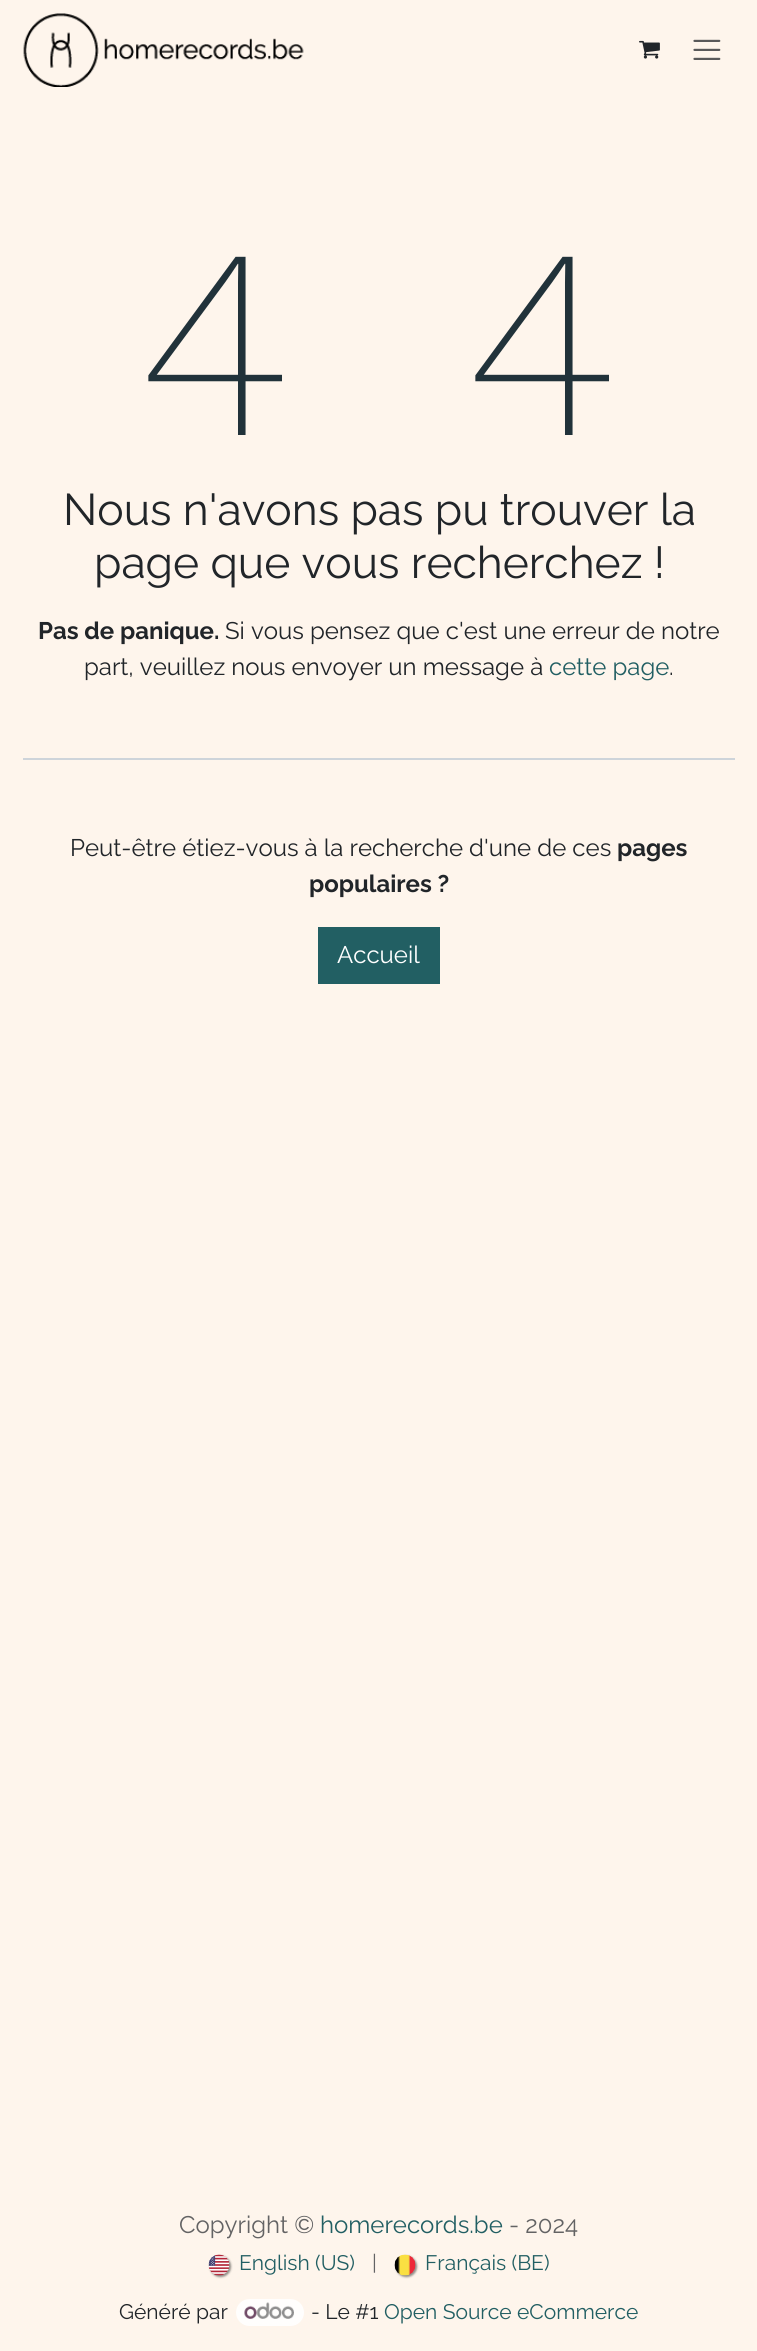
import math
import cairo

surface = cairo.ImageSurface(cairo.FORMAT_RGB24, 757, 2351)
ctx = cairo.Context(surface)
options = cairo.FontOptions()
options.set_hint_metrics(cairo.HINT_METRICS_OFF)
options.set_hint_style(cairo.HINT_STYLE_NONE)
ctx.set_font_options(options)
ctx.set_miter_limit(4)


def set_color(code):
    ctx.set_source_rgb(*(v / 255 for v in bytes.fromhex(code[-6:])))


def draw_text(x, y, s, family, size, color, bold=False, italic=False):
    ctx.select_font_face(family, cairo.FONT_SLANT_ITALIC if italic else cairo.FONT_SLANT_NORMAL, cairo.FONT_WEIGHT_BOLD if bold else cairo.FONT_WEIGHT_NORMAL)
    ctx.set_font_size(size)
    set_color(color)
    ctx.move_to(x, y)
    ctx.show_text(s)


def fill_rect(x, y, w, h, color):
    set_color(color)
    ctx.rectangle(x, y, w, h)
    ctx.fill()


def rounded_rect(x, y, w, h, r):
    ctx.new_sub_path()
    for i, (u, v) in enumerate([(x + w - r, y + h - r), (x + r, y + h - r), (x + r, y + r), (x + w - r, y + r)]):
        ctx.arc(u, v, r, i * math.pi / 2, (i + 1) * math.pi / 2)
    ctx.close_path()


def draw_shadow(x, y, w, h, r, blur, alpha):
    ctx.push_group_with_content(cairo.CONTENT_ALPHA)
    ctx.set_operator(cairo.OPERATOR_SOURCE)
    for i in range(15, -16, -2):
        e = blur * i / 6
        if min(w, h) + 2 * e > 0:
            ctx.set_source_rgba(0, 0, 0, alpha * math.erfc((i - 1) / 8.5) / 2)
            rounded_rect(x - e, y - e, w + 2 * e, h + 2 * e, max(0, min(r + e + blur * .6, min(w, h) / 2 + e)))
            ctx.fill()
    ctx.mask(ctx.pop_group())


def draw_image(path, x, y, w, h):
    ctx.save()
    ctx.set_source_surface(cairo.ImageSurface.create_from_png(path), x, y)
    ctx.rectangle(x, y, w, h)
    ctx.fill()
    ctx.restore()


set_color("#fef5ec")
ctx.paint()
draw_image("assets/img1.png", 23, 13, 281, 74)
draw_image("assets/img2.png", 639, 40, 21, 19)
draw_image("assets/img3.png", 693, 39, 28, 21)
draw_image("assets/img4.png", 148, 256, 461, 179)
draw_text(63, 525, "Nous n'avons pas pu trouver la", "Raleway", 44.4, "#212529")
draw_text(94, 578, "page que vous recherchez !", "Raleway", 44.4, "#212529")
draw_text(38, 639, "Pas de panique.", "Raleway", 24, "#212529", bold=True)
draw_text(225, 639, "Si vous pensez que c'est une erreur de notre", "Raleway", 24, "#212529")
draw_text(84, 675, "part, veuillez nous envoyer un message à", "Raleway", 24, "#212529")
draw_text(549, 675, "cette page", "Raleway", 24, "#225f63")
draw_text(669, 675, ".", "Raleway", 24, "#212529")
fill_rect(23, 758, 712, 2, "#ced4da")
draw_text(70, 856, "Peut-être étiez-vous à la recherche d'une de ces", "Raleway", 24, "#212529")
draw_text(617, 856, "pages", "Raleway", 24, "#212529", bold=True)
draw_text(309, 892, "populaires ?", "Raleway", 24, "#212529", bold=True)
fill_rect(318, 927, 122, 57, "#225f63")
draw_text(337, 963, "Accueil", "Raleway", 24, "#ffffff")
draw_text(179, 2233, "Copyright ©", "Raleway", 24, "#636364")
draw_text(320, 2233, "homerecords.be", "Raleway", 24, "#225f63")
draw_text(509, 2233, "- 2024", "Raleway", 24, "#636364")
set_color("#000000")
draw_shadow(210, 2256, 21, 21, 10.5, 1, 0.43)
draw_image("assets/img5.png", 208, 2254, 22, 22)
draw_text(239, 2270, "English (US)", "Raleway", 21, "#225f63")
draw_text(372, 2270, "|", "Raleway", 21, "#636364")
set_color("#000000")
draw_shadow(396, 2256, 21, 21, 10.5, 1, 0.43)
draw_image("assets/img6.png", 394, 2254, 22, 22)
draw_text(425, 2270, "Français (BE)", "Raleway", 21, "#225f63")
draw_text(119, 2319, "Généré par", "Raleway", 21, "#212529")
set_color("#fffefd")
rounded_rect(235, 2298, 70, 29, 14.5)
ctx.fill_preserve()
set_color("#fef5ec")
ctx.stroke()
draw_image("assets/img7.png", 244, 2302, 50, 17)
draw_text(311, 2319, "- Le #1", "Raleway", 21, "#212529")
draw_text(384, 2319, "Open Source eCommerce", "Raleway", 21, "#225f63")
surface.write_to_png("output.png")
